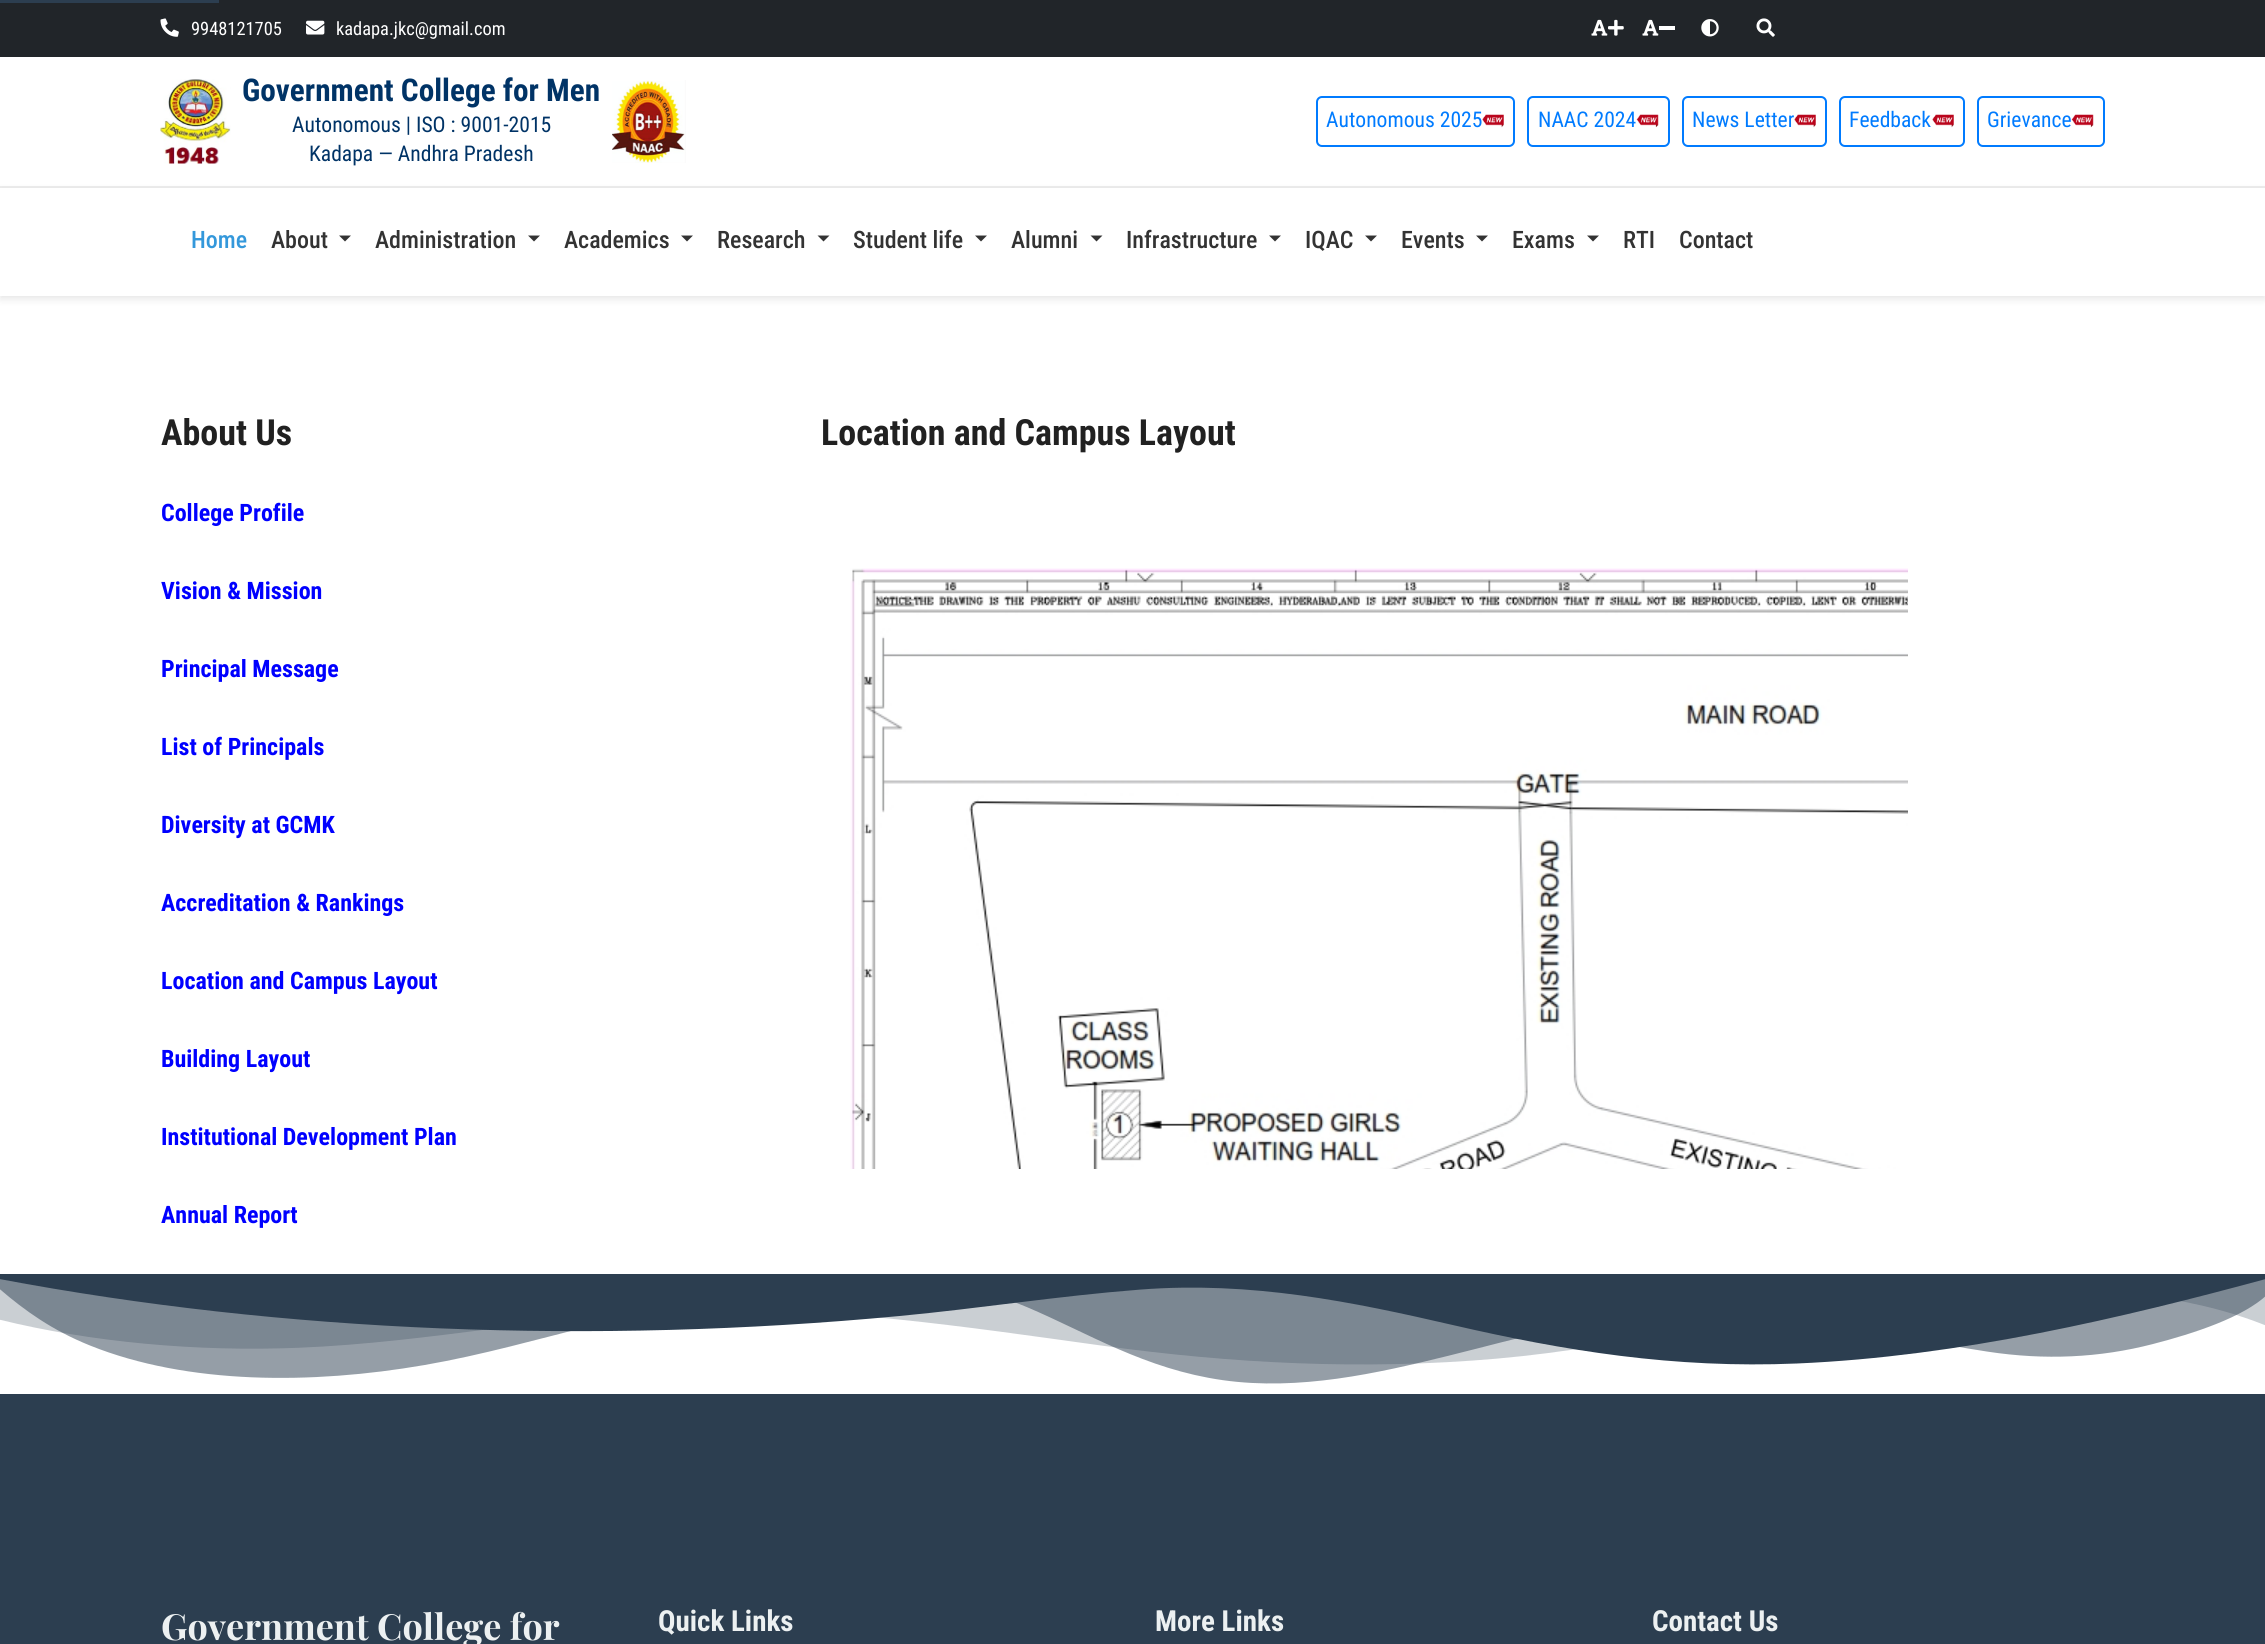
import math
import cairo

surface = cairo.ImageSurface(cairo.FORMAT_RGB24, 2265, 1644)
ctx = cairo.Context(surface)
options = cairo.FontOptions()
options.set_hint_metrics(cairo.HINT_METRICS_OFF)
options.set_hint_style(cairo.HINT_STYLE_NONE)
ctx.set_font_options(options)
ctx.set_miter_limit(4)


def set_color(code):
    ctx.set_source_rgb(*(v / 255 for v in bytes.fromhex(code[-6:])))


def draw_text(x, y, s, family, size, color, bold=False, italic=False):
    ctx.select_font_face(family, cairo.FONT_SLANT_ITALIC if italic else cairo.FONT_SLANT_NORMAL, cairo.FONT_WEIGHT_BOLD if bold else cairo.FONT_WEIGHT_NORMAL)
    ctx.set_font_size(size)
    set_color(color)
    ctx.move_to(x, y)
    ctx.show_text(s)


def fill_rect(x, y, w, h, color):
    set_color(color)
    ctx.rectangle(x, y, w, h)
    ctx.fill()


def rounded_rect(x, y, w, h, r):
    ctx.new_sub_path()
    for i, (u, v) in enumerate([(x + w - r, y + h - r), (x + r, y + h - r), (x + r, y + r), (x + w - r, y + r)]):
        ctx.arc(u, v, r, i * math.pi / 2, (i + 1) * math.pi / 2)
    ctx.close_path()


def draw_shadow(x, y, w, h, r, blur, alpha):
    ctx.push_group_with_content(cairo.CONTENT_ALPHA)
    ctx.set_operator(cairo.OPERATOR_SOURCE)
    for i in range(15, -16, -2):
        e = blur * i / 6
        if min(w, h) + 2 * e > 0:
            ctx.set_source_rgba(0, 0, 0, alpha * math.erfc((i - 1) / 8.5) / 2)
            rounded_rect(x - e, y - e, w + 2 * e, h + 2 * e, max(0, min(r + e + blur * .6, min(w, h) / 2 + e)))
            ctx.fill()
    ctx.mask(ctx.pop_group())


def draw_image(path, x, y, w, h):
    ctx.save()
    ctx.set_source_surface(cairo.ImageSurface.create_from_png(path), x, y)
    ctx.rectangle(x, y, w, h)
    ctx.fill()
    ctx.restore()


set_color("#ffffff")
ctx.paint()
fill_rect(0, 0, 2265, 57, "#212529")
fill_rect(0, 0, 219, 3, "#2c3e50")
draw_image("assets/img1.png", 160, 18, 19, 19)
draw_text(191, 35, "9948121705", "Roboto Condensed", 18.4, "#ffffff")
draw_image("assets/img2.png", 306, 20, 19, 15)
draw_text(336, 35, "kadapa.jkc@gmail.com", "Roboto Condensed", 18.4, "#ffffff")
draw_image("assets/img3.png", 1591, 19, 17, 17)
draw_image("assets/img4.png", 1608, 19, 16, 17)
draw_image("assets/img3.png", 1642, 19, 17, 17)
fill_rect(1659, 26, 16, 4, "#ffffff")
draw_image("assets/img5.png", 1701, 19, 18, 18)
draw_image("assets/img6.png", 1756, 18, 19, 19)
fill_rect(0, 186, 2265, 2, "#eeeeee")
draw_image("assets/img7.png", 160, 79, 71, 85)
draw_text(242, 101, "Government College for Men", "Roboto Condensed", 31.25, "#003366", bold=True)
draw_text(292, 132, "Autonomous | ISO : 9001-2015", "Roboto Condensed", 21.6, "#003366")
draw_text(309, 161, "Kadapa — Andhra Pradesh", "Roboto Condensed", 21.6, "#003366")
draw_image("assets/img8.png", 612, 80, 74, 83)
rounded_rect(1317, 97, 197, 49, 5)
set_color("#007bff")
ctx.stroke()
draw_text(1326, 127, "Autonomous 2025", "Roboto Condensed", 21.6, "#007bff")
draw_image("assets/img9.png", 1482, 114, 22, 14)
rounded_rect(1528, 97, 141, 49, 5)
ctx.stroke()
draw_text(1538, 127, "NAAC 2024", "Roboto Condensed", 21.6, "#007bff")
draw_image("assets/img10.png", 1636, 114, 23, 14)
rounded_rect(1683, 97, 143, 49, 5)
ctx.stroke()
draw_text(1692, 127, "News Letter", "Roboto Condensed", 21.6, "#007bff")
draw_image("assets/img9.png", 1794, 114, 22, 14)
rounded_rect(1840, 97, 124, 49, 5)
ctx.stroke()
draw_text(1849, 127, "Feedback", "Roboto Condensed", 21.6, "#007bff")
draw_image("assets/img9.png", 1932, 114, 22, 14)
rounded_rect(1978, 97, 126, 49, 5)
ctx.stroke()
draw_text(1987, 127, "Grievance", "Roboto Condensed", 21.6, "#007bff")
draw_image("assets/img10.png", 2071, 114, 23, 14)
set_color("#000000")
draw_shadow(0, 191, 2265, 108, 0, 4, 0.1)
fill_rect(0, 188, 2265, 108, "#ffffff")
draw_text(191, 248, "Home", "Roboto Condensed Medium", 24, "#3498db")
draw_text(271, 248, "About", "Roboto Condensed Medium", 24, "#333333")
ctx.new_path()
ctx.move_to(339, 235.5)
ctx.line_to(351, 235.5)
ctx.line_to(345, 241.5)
ctx.close_path()
ctx.fill()
draw_text(375, 248, "Administration", "Roboto Condensed Medium", 24, "#333333")
ctx.new_path()
ctx.move_to(528, 235.5)
ctx.line_to(540, 235.5)
ctx.line_to(534, 241.5)
ctx.close_path()
ctx.fill()
draw_text(564, 248, "Academics", "Roboto Condensed Medium", 24, "#333333")
ctx.new_path()
ctx.move_to(681, 235.5)
ctx.line_to(693, 235.5)
ctx.line_to(687, 241.5)
ctx.close_path()
ctx.fill()
draw_text(717, 248, "Research", "Roboto Condensed Medium", 24, "#333333")
ctx.new_path()
ctx.move_to(817.5, 235.5)
ctx.line_to(829.5, 235.5)
ctx.line_to(823.5, 241.5)
ctx.close_path()
ctx.fill()
draw_text(853, 248, "Student life", "Roboto Condensed Medium", 24, "#333333")
ctx.new_path()
ctx.move_to(975, 235.5)
ctx.line_to(987, 235.5)
ctx.line_to(981, 241.5)
ctx.close_path()
ctx.fill()
draw_text(1011, 248, "Alumni", "Roboto Condensed Medium", 24, "#333333")
ctx.new_path()
ctx.move_to(1090.5, 235.5)
ctx.line_to(1102.5, 235.5)
ctx.line_to(1096.5, 241.5)
ctx.close_path()
ctx.fill()
draw_text(1126, 248, "Infrastructure", "Roboto Condensed Medium", 24, "#333333")
ctx.new_path()
ctx.move_to(1269, 235.5)
ctx.line_to(1281, 235.5)
ctx.line_to(1275, 241.5)
ctx.close_path()
ctx.fill()
draw_text(1305, 248, "IQAC", "Roboto Condensed Medium", 24, "#333333")
ctx.new_path()
ctx.move_to(1365, 235.5)
ctx.line_to(1377, 235.5)
ctx.line_to(1371, 241.5)
ctx.close_path()
ctx.fill()
draw_text(1401, 248, "Events", "Roboto Condensed Medium", 24, "#333333")
ctx.new_path()
ctx.move_to(1476, 235.5)
ctx.line_to(1488, 235.5)
ctx.line_to(1482, 241.5)
ctx.close_path()
ctx.fill()
draw_text(1512, 248, "Exams", "Roboto Condensed Medium", 24, "#333333")
ctx.new_path()
ctx.move_to(1587, 235.5)
ctx.line_to(1599, 235.5)
ctx.line_to(1593, 241.5)
ctx.close_path()
ctx.fill()
draw_text(1623, 248, "RTI", "Roboto Condensed Medium", 24, "#333333")
draw_text(1679, 248, "Contact", "Roboto Condensed Medium", 24, "#333333")
draw_text(161, 445, "About Us", "Roboto Condensed", 36, "#212121", bold=True)
draw_text(161, 521, "College Profile", "Roboto Condensed", 24, "#0000ff", bold=True)
draw_text(161, 599, "Vision & Mission", "Roboto Condensed", 24, "#0000ff", bold=True)
draw_text(161, 677, "Principal Message", "Roboto Condensed", 24, "#0000ff", bold=True)
draw_text(161, 755, "List of Principals", "Roboto Condensed", 24, "#0000ff", bold=True)
draw_text(161, 833, "Diversity at GCMK", "Roboto Condensed", 24, "#0000ff", bold=True)
draw_text(161, 911, "Accreditation & Rankings", "Roboto Condensed", 24, "#0000ff", bold=True)
draw_text(161, 989, "Location and Campus Layout", "Roboto Condensed", 24, "#0000ff", bold=True)
draw_text(161, 1067, "Building Layout", "Roboto Condensed", 24, "#0000ff", bold=True)
draw_text(161, 1145, "Institutional Development Plan", "Roboto Condensed", 24, "#0000ff", bold=True)
draw_text(161, 1223, "Annual Report", "Roboto Condensed", 24, "#0000ff", bold=True)
draw_text(821, 445, "Location and Campus Layout", "Roboto Condensed", 36, "#212121", bold=True)
draw_image("assets/img11.png", 850, 568, 1058, 601)
fill_rect(0, 1394, 2265, 250, "#2c3e50")
draw_image("assets/img12.png", 0, 1274, 2265, 110)
draw_text(161, 1640, "Government College for", "Playfair Display", 36, "#ecf0f1", bold=True)
draw_text(658, 1631, "Quick Links", "Roboto Condensed", 29, "#ecf0f1", bold=True)
draw_text(1155, 1631, "More Links", "Roboto Condensed", 29, "#ecf0f1", bold=True)
draw_text(1652, 1631, "Contact Us", "Roboto Condensed", 29, "#ecf0f1", bold=True)
surface.write_to_png("output.png")
